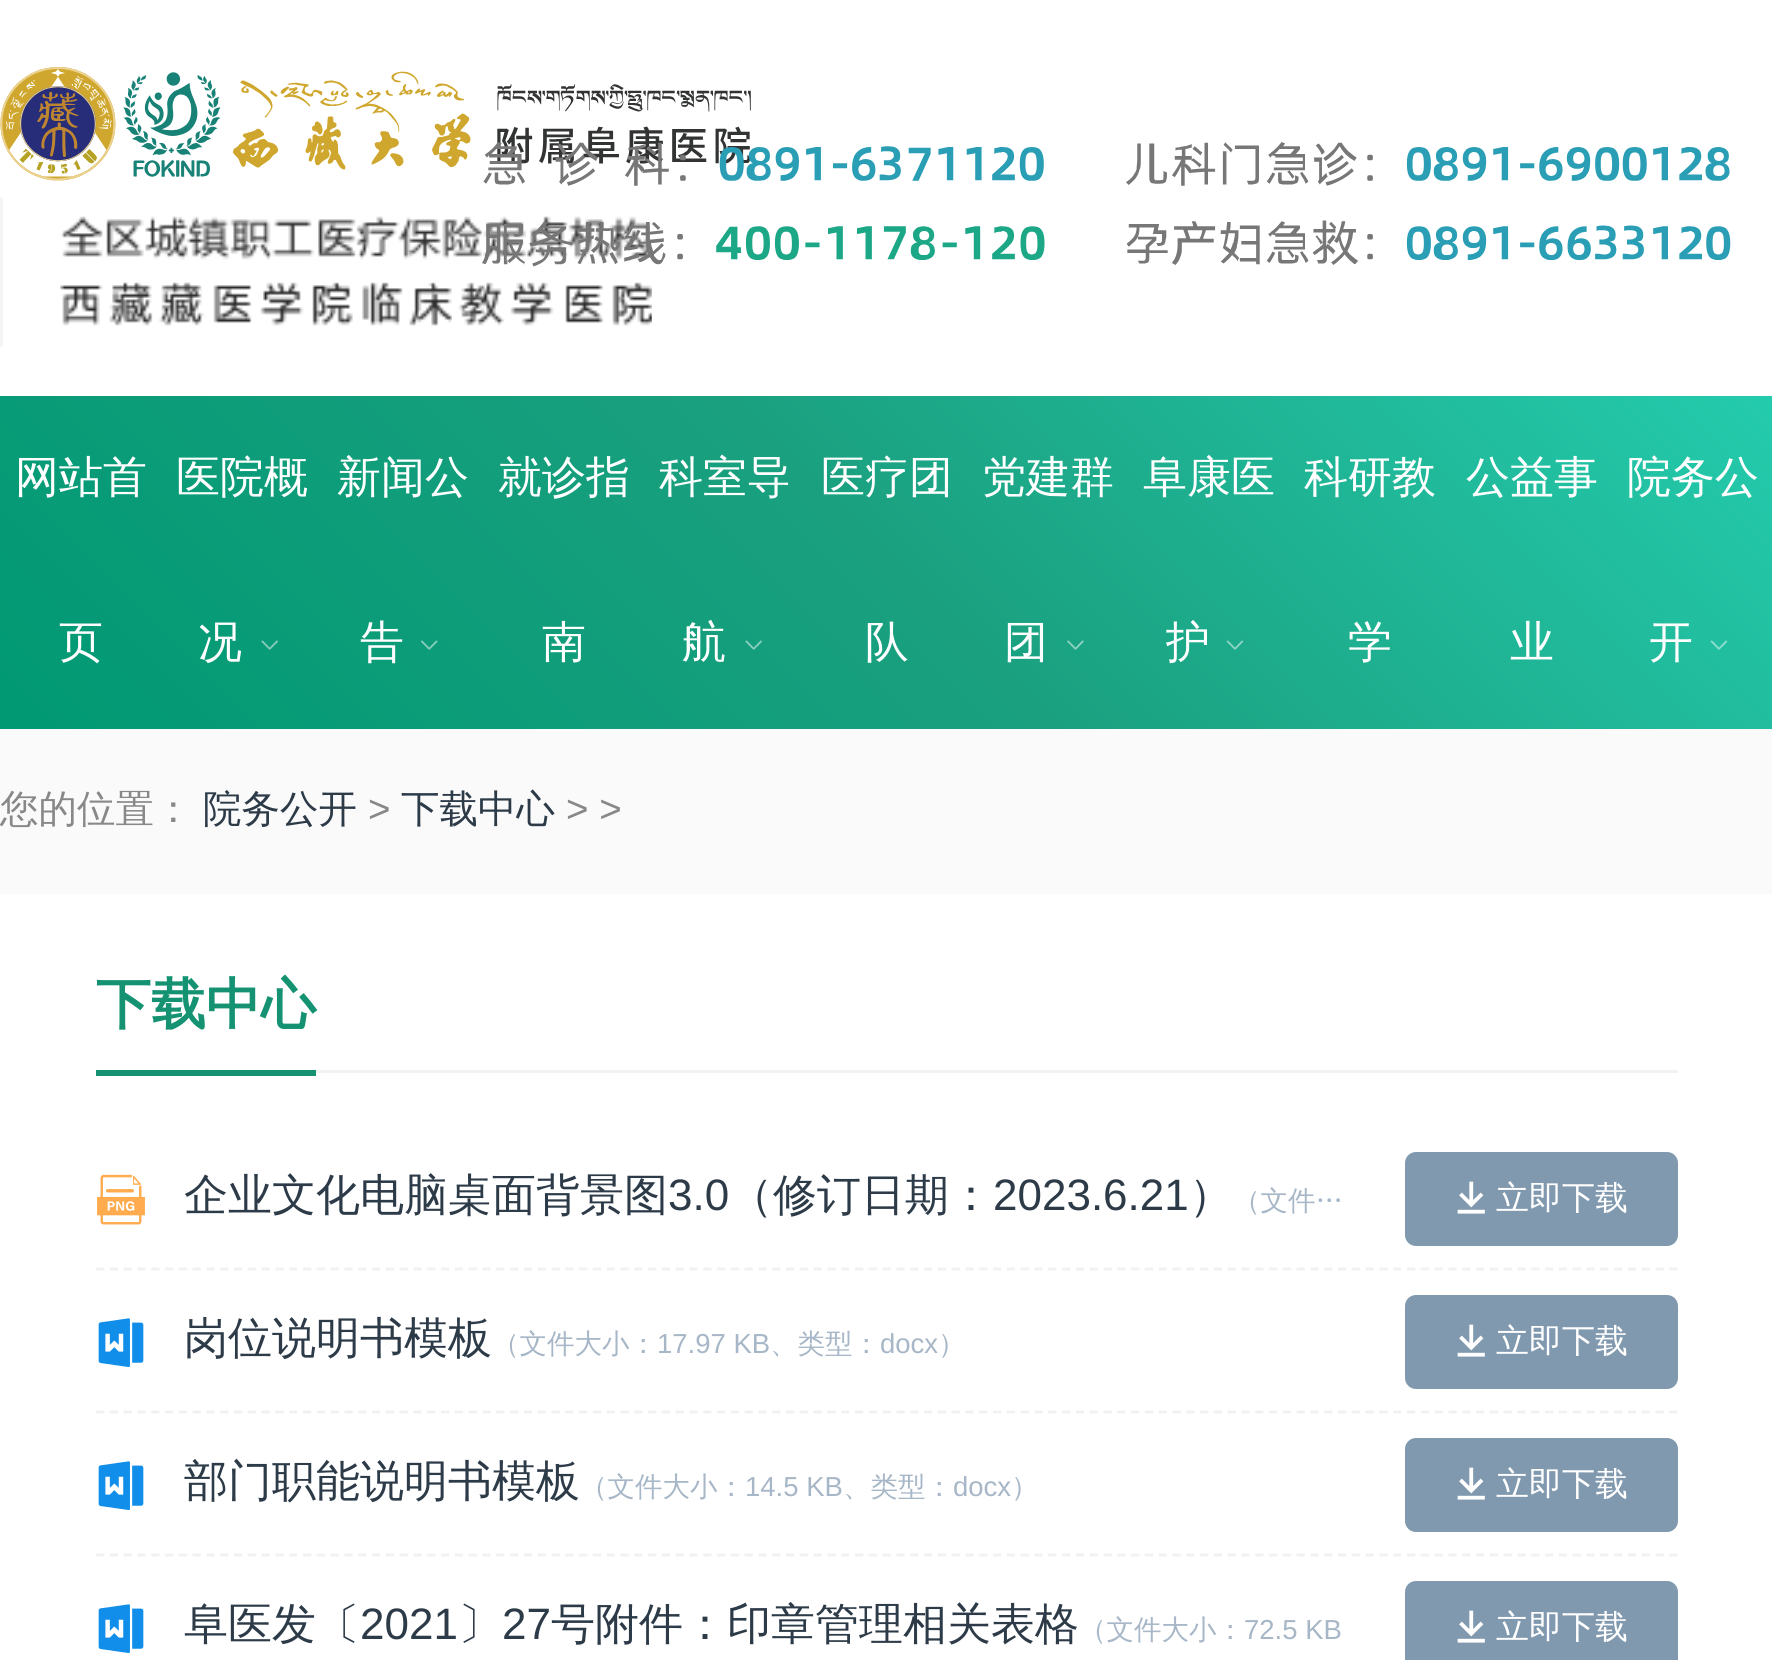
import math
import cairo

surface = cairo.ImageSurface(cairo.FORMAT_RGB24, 1772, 1660)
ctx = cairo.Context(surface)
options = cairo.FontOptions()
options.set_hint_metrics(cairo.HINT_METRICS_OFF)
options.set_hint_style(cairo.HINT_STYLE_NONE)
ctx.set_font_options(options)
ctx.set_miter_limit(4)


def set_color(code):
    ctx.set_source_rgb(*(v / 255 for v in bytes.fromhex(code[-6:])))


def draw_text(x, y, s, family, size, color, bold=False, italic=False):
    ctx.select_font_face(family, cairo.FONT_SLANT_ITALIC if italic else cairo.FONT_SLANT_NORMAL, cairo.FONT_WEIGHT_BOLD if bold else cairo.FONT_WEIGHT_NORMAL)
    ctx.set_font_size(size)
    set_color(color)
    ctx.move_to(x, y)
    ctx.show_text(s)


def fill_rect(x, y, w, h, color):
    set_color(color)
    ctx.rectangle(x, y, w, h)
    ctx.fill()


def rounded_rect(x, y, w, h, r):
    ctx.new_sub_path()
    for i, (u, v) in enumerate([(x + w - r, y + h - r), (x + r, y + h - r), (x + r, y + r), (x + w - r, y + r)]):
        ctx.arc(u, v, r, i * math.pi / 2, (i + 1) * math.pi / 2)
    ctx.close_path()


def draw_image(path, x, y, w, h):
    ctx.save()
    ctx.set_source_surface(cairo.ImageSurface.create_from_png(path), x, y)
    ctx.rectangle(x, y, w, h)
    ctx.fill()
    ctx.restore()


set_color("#fafafa")
ctx.paint()
fill_rect(0, 0, 1772, 396, "#ffffff")
draw_image("assets/img1.png", 0, 67, 751, 114)
fill_rect(0, 198, 3, 149, "#f5f5f5")
draw_image("assets/img2.png", 60, 216, 592, 110)
draw_image("assets/img3.png", 482, 142, 1249, 125)
gradient = cairo.LinearGradient(360, 1089, 1414, 36)
gradient.add_color_stop_rgba(0, 0, 0.6, 0.451, 1)
gradient.add_color_stop_rgba(0.5, 0.102, 0.627, 0.498, 1)
gradient.add_color_stop_rgba(1, 0.141, 0.796, 0.678, 1)
ctx.set_source(gradient)
ctx.rectangle(0, 396, 1772, 333)
ctx.fill()
draw_text(15, 492, "网站首", "WenQuanYi Zen Hei Medium", 44, "#ffffff")
draw_text(59, 657, "页", "WenQuanYi Zen Hei Medium", 44, "#ffffff")
draw_text(176, 492, "医院概", "WenQuanYi Zen Hei Medium", 44, "#ffffff")
draw_text(198, 657, "况", "WenQuanYi Zen Hei Medium", 44, "#ffffff")
draw_image("assets/img4.png", 261, 640, 17, 10)
draw_text(337, 492, "新闻公", "WenQuanYi Zen Hei Medium", 44, "#ffffff")
draw_text(360, 657, "告", "WenQuanYi Zen Hei Medium", 44, "#ffffff")
draw_image("assets/img5.png", 421, 640, 17, 10)
draw_text(498, 492, "就诊指", "WenQuanYi Zen Hei Medium", 44, "#ffffff")
draw_text(542, 657, "南", "WenQuanYi Zen Hei Medium", 44, "#ffffff")
draw_text(659, 492, "科室导", "WenQuanYi Zen Hei Medium", 44, "#ffffff")
draw_text(682, 657, "航", "WenQuanYi Zen Hei Medium", 44, "#ffffff")
draw_image("assets/img6.png", 745, 640, 17, 10)
draw_text(821, 492, "医疗团", "WenQuanYi Zen Hei Medium", 44, "#ffffff")
draw_text(865, 657, "队", "WenQuanYi Zen Hei Medium", 44, "#ffffff")
draw_text(982, 492, "党建群", "WenQuanYi Zen Hei Medium", 44, "#ffffff")
draw_text(1004, 657, "团", "WenQuanYi Zen Hei Medium", 44, "#ffffff")
draw_image("assets/img7.png", 1067, 640, 17, 10)
draw_text(1143, 492, "阜康医", "WenQuanYi Zen Hei Medium", 44, "#ffffff")
draw_text(1166, 657, "护", "WenQuanYi Zen Hei Medium", 44, "#ffffff")
draw_image("assets/img8.png", 1226, 640, 18, 10)
draw_text(1304, 492, "科研教", "WenQuanYi Zen Hei Medium", 44, "#ffffff")
draw_text(1348, 657, "学", "WenQuanYi Zen Hei Medium", 44, "#ffffff")
draw_text(1466, 492, "公益事", "WenQuanYi Zen Hei Medium", 44, "#ffffff")
draw_text(1510, 657, "业", "WenQuanYi Zen Hei Medium", 44, "#ffffff")
draw_text(1627, 492, "院务公", "WenQuanYi Zen Hei Medium", 44, "#ffffff")
draw_text(1649, 657, "开", "WenQuanYi Zen Hei Medium", 44, "#ffffff")
draw_image("assets/img9.png", 1710, 640, 18, 10)
draw_text(0, 822, "您的位置：", "WenQuanYi Zen Hei Medium", 38.5, "#888888")
draw_text(203, 822, "院务公开", "WenQuanYi Zen Hei Medium", 38.5, "#2d3b49")
draw_text(368, 822, ">", "Liberation Sans", 38.5, "#888888")
draw_text(401, 822, "下载中心", "WenQuanYi Zen Hei Medium", 38.5, "#2d3b49")
draw_text(566, 822, "> >", "Liberation Sans", 38.5, "#888888")
fill_rect(0, 894, 1772, 766, "#ffffff")
fill_rect(316, 1070, 1362, 3, "#f2f2f2")
draw_text(96, 1023, "下载中心", "WenQuanYi Zen Hei", 55, "#149272", bold=True)
fill_rect(96, 1070, 220, 6, "#149272")
draw_image("assets/img10.png", 97, 1174, 48, 51)
draw_text(184, 1210, "企业文化电脑桌面背景图", "WenQuanYi Zen Hei Medium", 44, "#2d3b49")
draw_text(668, 1210, "3.0", "Liberation Sans", 44, "#2d3b49")
draw_text(729, 1210, "（修订日期：", "WenQuanYi Zen Hei Medium", 44, "#2d3b49")
draw_text(993, 1210, "2023.6.21", "Liberation Sans", 44, "#2d3b49")
draw_text(1189, 1210, "）", "WenQuanYi Zen Hei Medium", 44, "#2d3b49")
draw_text(1233, 1210, "（文件…", "WenQuanYi Zen Hei Medium", 27.5, "#a7b7c7")
set_color("#8199af")
rounded_rect(1405, 1152, 273, 94, 11)
ctx.fill()
draw_image("assets/img11.png", 1457, 1181, 28, 33)
draw_text(1496, 1209, "立即下载", "WenQuanYi Zen Hei Medium", 33, "#ffffff")
ctx.new_path()
ctx.move_to(96, 1269)
ctx.line_to(1677.5, 1269)
set_color("#f1f1f1")
ctx.set_line_width(2.8)
ctx.set_dash([8.25, 5.55])
ctx.stroke()
draw_image("assets/img12.png", 98, 1318, 46, 49)
draw_text(184, 1353, "岗位说明书模板", "WenQuanYi Zen Hei Medium", 44, "#2d3b49")
draw_text(492, 1353, "（文件大小：", "WenQuanYi Zen Hei Medium", 27.5, "#a7b7c7")
draw_text(657, 1353, "17.97 KB", "Liberation Sans", 27.5, "#a7b7c7")
draw_text(770, 1353, "、类型：", "WenQuanYi Zen Hei Medium", 27.5, "#a7b7c7")
draw_text(880, 1353, "docx", "Liberation Sans", 27.5, "#a7b7c7")
draw_text(938, 1353, "）", "WenQuanYi Zen Hei Medium", 27.5, "#a7b7c7")
set_color("#8199af")
rounded_rect(1405, 1295, 273, 94, 11)
ctx.fill()
draw_image("assets/img11.png", 1457, 1324, 28, 33)
draw_text(1496, 1352, "立即下载", "WenQuanYi Zen Hei Medium", 33, "#ffffff")
ctx.new_path()
ctx.move_to(96, 1412)
ctx.line_to(1677.5, 1412)
set_color("#f1f1f1")
ctx.stroke()
draw_image("assets/img12.png", 98, 1461, 46, 49)
draw_text(184, 1496, "部门职能说明书模板", "WenQuanYi Zen Hei Medium", 44, "#2d3b49")
draw_text(580, 1496, "（文件大小：", "WenQuanYi Zen Hei Medium", 27.5, "#a7b7c7")
draw_text(745, 1496, "14.5 KB", "Liberation Sans", 27.5, "#a7b7c7")
draw_text(843, 1496, "、类型：", "WenQuanYi Zen Hei Medium", 27.5, "#a7b7c7")
draw_text(953, 1496, "docx", "Liberation Sans", 27.5, "#a7b7c7")
draw_text(1011, 1496, "）", "WenQuanYi Zen Hei Medium", 27.5, "#a7b7c7")
set_color("#8199af")
rounded_rect(1405, 1438, 273, 94, 11)
ctx.fill()
draw_image("assets/img11.png", 1457, 1467, 28, 33)
draw_text(1496, 1495, "立即下载", "WenQuanYi Zen Hei Medium", 33, "#ffffff")
ctx.new_path()
ctx.move_to(96, 1555)
ctx.line_to(1677.5, 1555)
set_color("#f1f1f1")
ctx.stroke()
draw_image("assets/img12.png", 98, 1604, 46, 49)
draw_text(184, 1639, "阜医发〔", "WenQuanYi Zen Hei Medium", 44, "#2d3b49")
draw_text(360, 1639, "2021", "Liberation Sans", 44, "#2d3b49")
draw_text(458, 1639, "〕", "WenQuanYi Zen Hei Medium", 44, "#2d3b49")
draw_text(502, 1639, "27", "Liberation Sans", 44, "#2d3b49")
draw_text(551, 1639, "号附件：印章管理相关表格", "WenQuanYi Zen Hei Medium", 44, "#2d3b49")
draw_text(1079, 1639, "（文件大小：", "WenQuanYi Zen Hei Medium", 27.5, "#a7b7c7")
draw_text(1244, 1639, "72.5 KB", "Liberation Sans", 27.5, "#a7b7c7")
set_color("#8199af")
rounded_rect(1405, 1581, 273, 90, 11)
ctx.fill()
draw_image("assets/img11.png", 1457, 1610, 28, 33)
draw_text(1496, 1638, "立即下载", "WenQuanYi Zen Hei Medium", 33, "#ffffff")
surface.write_to_png("output.png")
